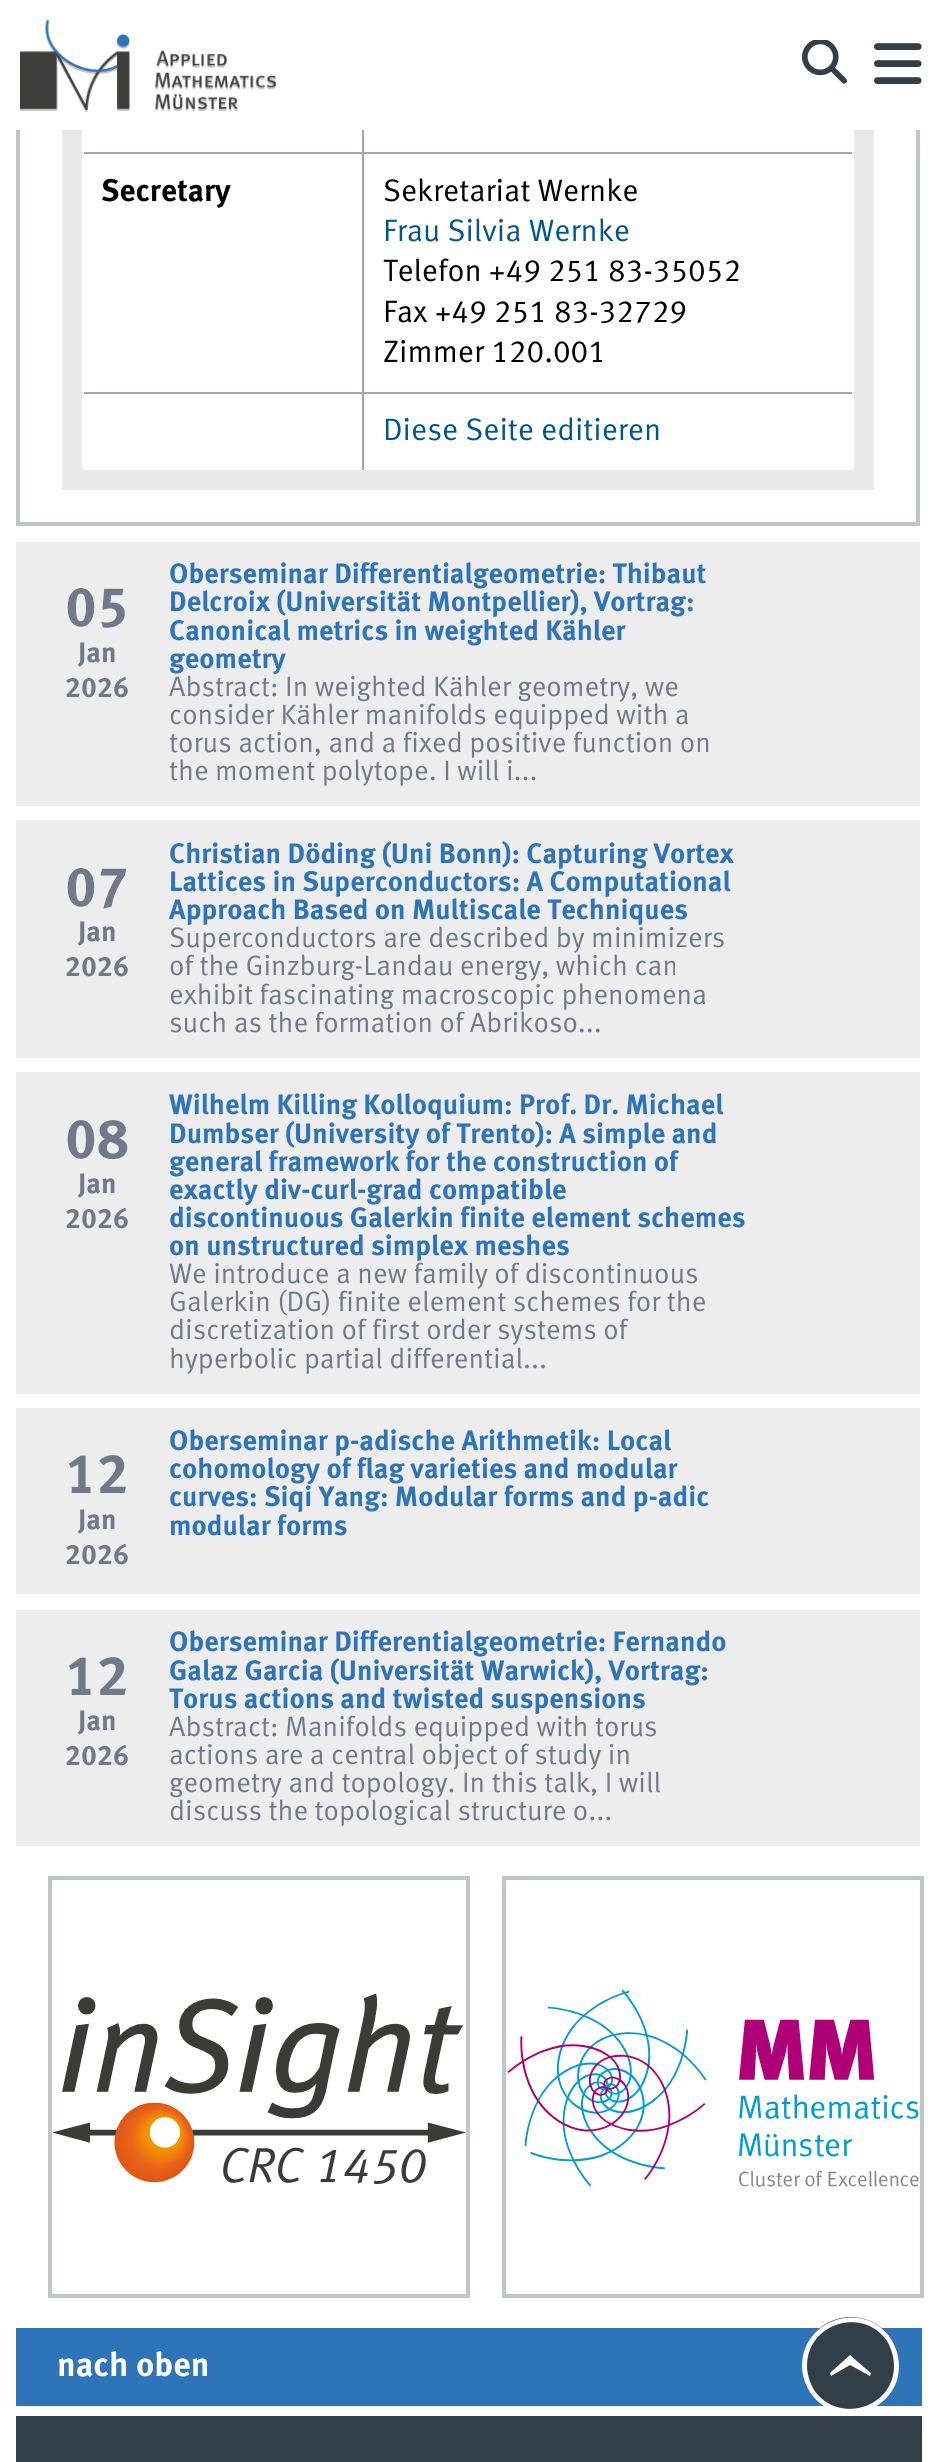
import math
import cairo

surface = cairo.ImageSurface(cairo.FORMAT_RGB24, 945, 2462)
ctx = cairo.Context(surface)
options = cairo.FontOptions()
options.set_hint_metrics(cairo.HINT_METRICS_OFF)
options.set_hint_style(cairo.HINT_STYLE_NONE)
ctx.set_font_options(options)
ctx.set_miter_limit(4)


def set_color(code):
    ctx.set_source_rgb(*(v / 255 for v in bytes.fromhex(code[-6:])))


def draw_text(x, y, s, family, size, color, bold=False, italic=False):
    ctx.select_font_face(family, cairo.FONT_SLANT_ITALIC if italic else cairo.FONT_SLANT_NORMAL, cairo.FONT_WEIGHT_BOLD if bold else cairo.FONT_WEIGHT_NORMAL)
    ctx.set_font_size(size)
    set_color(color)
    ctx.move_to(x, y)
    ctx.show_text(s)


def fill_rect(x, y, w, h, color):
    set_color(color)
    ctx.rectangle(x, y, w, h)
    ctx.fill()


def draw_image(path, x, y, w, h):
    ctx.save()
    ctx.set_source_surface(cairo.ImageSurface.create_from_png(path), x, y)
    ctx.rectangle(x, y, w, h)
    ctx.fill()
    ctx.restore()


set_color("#ffffff")
ctx.paint()
ctx.rectangle(18, -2, 900, 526)
set_color("#bec6c8")
ctx.set_line_width(4)
ctx.stroke()
fill_rect(82, 152, 2, 242, "#e8eaea")
fill_rect(84, 130, 768, 340, "#a0a8aa")
fill_rect(852, 152, 2, 242, "#e8eaea")
ctx.rectangle(71, 25, 794, 456)
ctx.set_line_width(18)
ctx.stroke()
fill_rect(84, 130, 278, 22, "#ffffff")
fill_rect(364, 130, 488, 22, "#ffffff")
fill_rect(82, 154, 280, 238, "#ffffff")
fill_rect(364, 154, 490, 238, "#ffffff")
fill_rect(84, 394, 278, 76, "#ffffff")
fill_rect(364, 394, 488, 76, "#ffffff")
ctx.save()
ctx.rectangle(80, 34, 776, 438)
ctx.clip()
ctx.rectangle(80, 34, 776, 438)
set_color("#e8eaea")
ctx.set_line_width(4)
ctx.stroke()
ctx.restore()
fill_rect(16, 0, 904, 130, "#ffffff")
draw_image("assets/img1.png", 20, 20, 256, 92)
draw_image("assets/img2.png", 802, 40, 45, 44)
draw_image("assets/img3.png", 874, 43, 48, 41)
draw_text(101, 201, "Secretary", "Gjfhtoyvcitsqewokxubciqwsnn", 31, "#000000", bold=True)
draw_text(383, 201, "Sekretariat Wernke", "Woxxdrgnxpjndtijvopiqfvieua", 31, "#000000")
draw_text(383, 241, "Frau Silvia Wernke", "Woxxdrgnxpjndtijvopiqfvieua", 31, "#00568a")
draw_text(383, 281, "Telefon +49 251 83-35052", "Woxxdrgnxpjndtijvopiqfvieua", 31, "#000000")
draw_text(383, 322, "Fax +49 251 83-32729", "Woxxdrgnxpjndtijvopiqfvieua", 31, "#000000")
draw_text(383, 362, "Zimmer 120.001", "Woxxdrgnxpjndtijvopiqfvieua", 31, "#000000")
draw_text(383, 440, "Diese Seite editieren", "Woxxdrgnxpjndtijvopiqfvieua", 31, "#00568a")
fill_rect(16, 2328, 906, 78, "#2e74b8")
set_color("#333f48")
ctx.new_path()
ctx.move_to(803, 2365)
ctx.curve_to(803, 2338, 824, 2317, 851, 2317)
ctx.curve_to(877, 2317, 899, 2338, 899, 2365)
ctx.curve_to(899, 2391, 877, 2413, 851, 2413)
ctx.curve_to(824, 2413, 803, 2391, 803, 2365)
ctx.close_path()
ctx.fill()
set_color("#ffffff")
ctx.new_path()
ctx.move_to(802, 2366)
ctx.curve_to(802, 2320, 861, 2300, 889, 2336)
ctx.curve_to(895, 2344, 899, 2355, 899, 2366)
ctx.curve_to(899, 2411, 840, 2431, 812, 2395)
ctx.curve_to(806, 2387, 802, 2376, 802, 2366)
ctx.close_path()
ctx.move_to(807, 2366)
ctx.curve_to(807, 2374, 810, 2383, 814, 2390)
ctx.curve_to(838, 2425, 894, 2408, 894, 2366)
ctx.curve_to(894, 2357, 891, 2348, 887, 2341)
ctx.curve_to(863, 2306, 807, 2323, 807, 2366)
ctx.close_path()
ctx.move_to(830, 2373)
ctx.line_to(850, 2355)
ctx.curve_to(856, 2360, 862, 2366, 871, 2373)
ctx.line_to(870, 2376)
ctx.line_to(850, 2365)
ctx.line_to(831, 2376)
ctx.close_path()
ctx.fill()
fill_rect(16, 542, 904, 264, "#ededed")
draw_text(65, 626, "05", "Gjfhtoyvcitsqewokxubciqwsnn", 56, "#70798a", bold=True)
draw_text(78, 662, "Jan", "Gjfhtoyvcitsqewokxubciqwsnn", 28.1, "#70798a", bold=True)
draw_text(65, 697, "2026", "Gjfhtoyvcitsqewokxubciqwsnn", 28.1, "#70798a", bold=True)
draw_text(169, 583, "Oberseminar Differentialgeometrie: Thibaut", "Gjfhtoyvcitsqewokxubciqwsnn", 28.1, "#2e74b8", bold=True)
draw_text(169, 611, "Delcroix (Universität Montpellier), Vortrag:", "Gjfhtoyvcitsqewokxubciqwsnn", 28.1, "#2e74b8", bold=True)
draw_text(169, 640, "Canonical metrics in weighted Kähler", "Gjfhtoyvcitsqewokxubciqwsnn", 28.1, "#2e74b8", bold=True)
draw_text(169, 668, "geometry", "Gjfhtoyvcitsqewokxubciqwsnn", 28.1, "#2e74b8", bold=True)
draw_text(169, 696, "Abstract: In weighted Kähler geometry, we", "Woxxdrgnxpjndtijvopiqfvieua", 28.1, "#70798a")
draw_text(169, 724, "consider Kähler manifolds equipped with a", "Woxxdrgnxpjndtijvopiqfvieua", 28.1, "#70798a")
draw_text(169, 752, "torus action, and a fixed positive function on", "Woxxdrgnxpjndtijvopiqfvieua", 28.1, "#70798a")
draw_text(169, 780, "the moment polytope. I will i...", "Woxxdrgnxpjndtijvopiqfvieua", 28.1, "#70798a")
fill_rect(16, 820, 904, 238, "#ededed")
draw_text(65, 906, "07", "Gjfhtoyvcitsqewokxubciqwsnn", 56, "#70798a", bold=True)
draw_text(78, 941, "Jan", "Gjfhtoyvcitsqewokxubciqwsnn", 28.1, "#70798a", bold=True)
draw_text(65, 976, "2026", "Gjfhtoyvcitsqewokxubciqwsnn", 28.1, "#70798a", bold=True)
draw_text(169, 863, "Christian Döding (Uni Bonn): Capturing Vortex", "Gjfhtoyvcitsqewokxubciqwsnn", 28.1, "#2e74b8", bold=True)
draw_text(169, 891, "Lattices in Superconductors: A Computational", "Gjfhtoyvcitsqewokxubciqwsnn", 28.1, "#2e74b8", bold=True)
draw_text(169, 919, "Approach Based on Multiscale Techniques", "Gjfhtoyvcitsqewokxubciqwsnn", 28.1, "#2e74b8", bold=True)
draw_text(169, 947, "Superconductors are described by minimizers", "Woxxdrgnxpjndtijvopiqfvieua", 28.1, "#70798a")
draw_text(169, 975, "of the Ginzburg-Landau energy, which can", "Woxxdrgnxpjndtijvopiqfvieua", 28.1, "#70798a")
draw_text(169, 1004, "exhibit fascinating macroscopic phenomena", "Woxxdrgnxpjndtijvopiqfvieua", 28.1, "#70798a")
draw_text(169, 1032, "such as the formation of Abrikoso...", "Woxxdrgnxpjndtijvopiqfvieua", 28.1, "#70798a")
fill_rect(16, 1072, 904, 322, "#ededed")
draw_text(65, 1158, "08", "Gjfhtoyvcitsqewokxubciqwsnn", 56, "#70798a", bold=True)
draw_text(78, 1193, "Jan", "Gjfhtoyvcitsqewokxubciqwsnn", 28.1, "#70798a", bold=True)
draw_text(65, 1228, "2026", "Gjfhtoyvcitsqewokxubciqwsnn", 28.1, "#70798a", bold=True)
draw_text(169, 1114, "Wilhelm Killing Kolloquium: Prof. Dr. Michael", "Gjfhtoyvcitsqewokxubciqwsnn", 28.1, "#2e74b8", bold=True)
draw_text(169, 1143, "Dumbser (University of Trento): A simple and", "Gjfhtoyvcitsqewokxubciqwsnn", 28.1, "#2e74b8", bold=True)
draw_text(169, 1171, "general framework for the construction of", "Gjfhtoyvcitsqewokxubciqwsnn", 28.1, "#2e74b8", bold=True)
draw_text(169, 1199, "exactly div-curl-grad compatible", "Gjfhtoyvcitsqewokxubciqwsnn", 28.1, "#2e74b8", bold=True)
draw_text(169, 1227, "discontinuous Galerkin finite element schemes", "Gjfhtoyvcitsqewokxubciqwsnn", 28.1, "#2e74b8", bold=True)
draw_text(169, 1255, "on unstructured simplex meshes", "Gjfhtoyvcitsqewokxubciqwsnn", 28.1, "#2e74b8", bold=True)
draw_text(169, 1283, "We introduce a new family of discontinuous", "Woxxdrgnxpjndtijvopiqfvieua", 28.1, "#70798a")
draw_text(169, 1311, "Galerkin (DG) finite element schemes for the", "Woxxdrgnxpjndtijvopiqfvieua", 28.1, "#70798a")
draw_text(169, 1339, "discretization of first order systems of", "Woxxdrgnxpjndtijvopiqfvieua", 28.1, "#70798a")
draw_text(169, 1368, "hyperbolic partial differential...", "Woxxdrgnxpjndtijvopiqfvieua", 28.1, "#70798a")
fill_rect(16, 1408, 904, 186, "#ededed")
draw_text(65, 1493, "12", "Gjfhtoyvcitsqewokxubciqwsnn", 56, "#70798a", bold=True)
draw_text(78, 1529, "Jan", "Gjfhtoyvcitsqewokxubciqwsnn", 28.1, "#70798a", bold=True)
draw_text(65, 1564, "2026", "Gjfhtoyvcitsqewokxubciqwsnn", 28.1, "#70798a", bold=True)
draw_text(169, 1450, "Oberseminar p-adische Arithmetik: Local", "Gjfhtoyvcitsqewokxubciqwsnn", 28.1, "#2e74b8", bold=True)
draw_text(169, 1478, "cohomology of flag varieties and modular", "Gjfhtoyvcitsqewokxubciqwsnn", 28.1, "#2e74b8", bold=True)
draw_text(169, 1506, "curves: Siqi Yang: Modular forms and p-adic", "Gjfhtoyvcitsqewokxubciqwsnn", 28.1, "#2e74b8", bold=True)
draw_text(169, 1535, "modular forms", "Gjfhtoyvcitsqewokxubciqwsnn", 28.1, "#2e74b8", bold=True)
fill_rect(16, 1610, 904, 236, "#ededed")
draw_text(65, 1695, "12", "Gjfhtoyvcitsqewokxubciqwsnn", 56, "#70798a", bold=True)
draw_text(78, 1730, "Jan", "Gjfhtoyvcitsqewokxubciqwsnn", 28.1, "#70798a", bold=True)
draw_text(65, 1765, "2026", "Gjfhtoyvcitsqewokxubciqwsnn", 28.1, "#70798a", bold=True)
draw_text(169, 1651, "Oberseminar Differentialgeometrie: Fernando", "Gjfhtoyvcitsqewokxubciqwsnn", 28.1, "#2e74b8", bold=True)
draw_text(169, 1680, "Galaz Garcia (Universität Warwick), Vortrag:", "Gjfhtoyvcitsqewokxubciqwsnn", 28.1, "#2e74b8", bold=True)
draw_text(169, 1708, "Torus actions and twisted suspensions", "Gjfhtoyvcitsqewokxubciqwsnn", 28.1, "#2e74b8", bold=True)
draw_text(169, 1736, "Abstract: Manifolds equipped with torus", "Woxxdrgnxpjndtijvopiqfvieua", 28.1, "#70798a")
draw_text(169, 1764, "actions are a central object of study in", "Woxxdrgnxpjndtijvopiqfvieua", 28.1, "#70798a")
draw_text(169, 1792, "geometry and topology. In this talk, I will", "Woxxdrgnxpjndtijvopiqfvieua", 28.1, "#70798a")
draw_text(169, 1820, "discuss the topological structure o...", "Woxxdrgnxpjndtijvopiqfvieua", 28.1, "#70798a")
ctx.rectangle(50, 1878, 418, 418)
set_color("#bec6c8")
ctx.set_line_width(4)
ctx.stroke()
draw_image("assets/img4.png", 52, 1993, 414, 191)
ctx.rectangle(504, 1878, 418, 418)
ctx.stroke()
draw_image("assets/img5.png", 507, 1989, 412, 198)
draw_text(57, 2376, "nach oben", "Gjfhtoyvcitsqewokxubciqwsnn", 33.75, "#ffffff", bold=True)
fill_rect(16, 2416, 906, 46, "#333f48")
surface.write_to_png("output.png")
